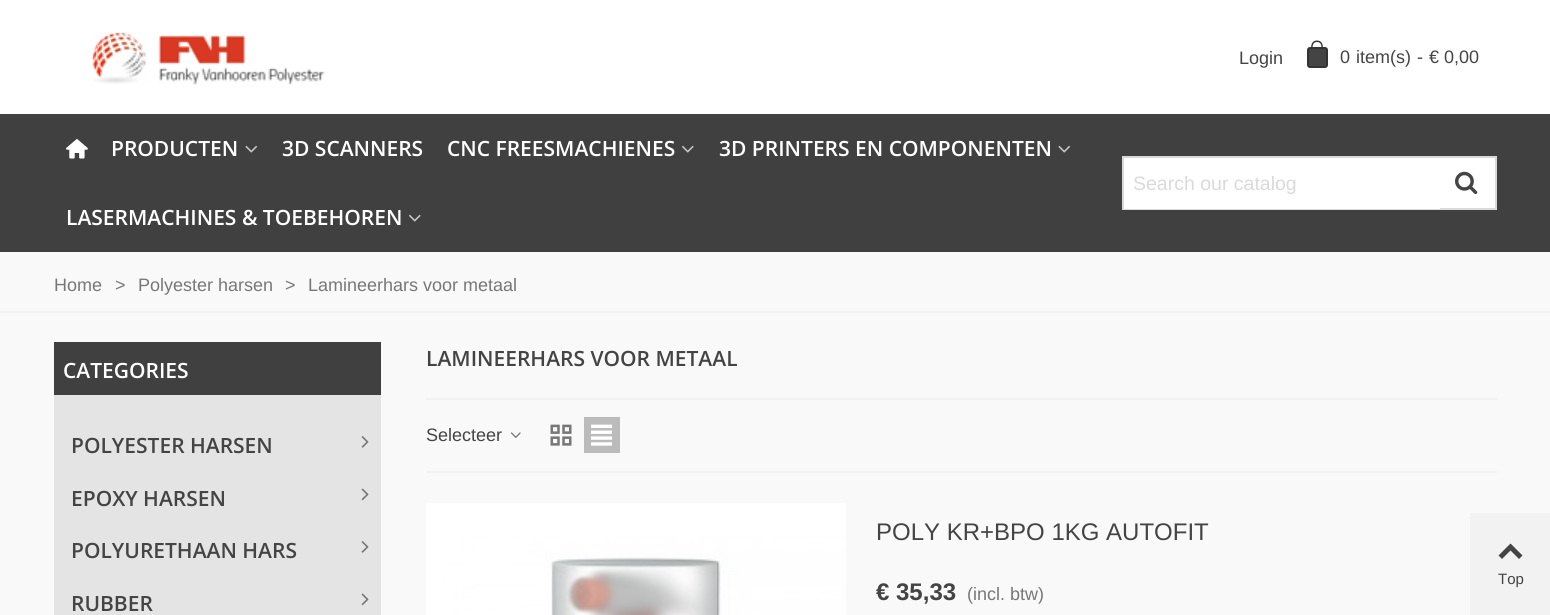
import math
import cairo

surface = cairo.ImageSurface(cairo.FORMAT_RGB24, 1550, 615)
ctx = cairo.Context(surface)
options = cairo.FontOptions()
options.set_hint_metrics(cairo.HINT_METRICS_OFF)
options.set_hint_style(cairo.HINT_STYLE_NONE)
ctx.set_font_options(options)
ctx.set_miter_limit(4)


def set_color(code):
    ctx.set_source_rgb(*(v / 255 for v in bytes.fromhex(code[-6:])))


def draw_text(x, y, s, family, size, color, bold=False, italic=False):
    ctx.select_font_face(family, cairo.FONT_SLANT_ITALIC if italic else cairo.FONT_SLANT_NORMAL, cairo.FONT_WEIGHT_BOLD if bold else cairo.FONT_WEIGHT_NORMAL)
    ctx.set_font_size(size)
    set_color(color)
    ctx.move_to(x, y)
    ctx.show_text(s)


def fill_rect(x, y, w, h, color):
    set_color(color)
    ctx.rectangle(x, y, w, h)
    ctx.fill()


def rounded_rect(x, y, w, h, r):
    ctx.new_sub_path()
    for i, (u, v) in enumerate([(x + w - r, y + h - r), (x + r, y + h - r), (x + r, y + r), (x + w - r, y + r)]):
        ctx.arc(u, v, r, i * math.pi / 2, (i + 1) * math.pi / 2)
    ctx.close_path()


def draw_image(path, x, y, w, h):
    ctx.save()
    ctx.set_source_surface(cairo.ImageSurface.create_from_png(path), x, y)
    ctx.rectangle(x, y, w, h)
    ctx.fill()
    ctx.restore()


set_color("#f9f9f9")
ctx.paint()
fill_rect(0, 0, 1550, 114, "#ffffff")
draw_image("assets/img1.png", 91, 32, 234, 53)
draw_text(1239, 64, "Login", "Liberation Sans", 18, "#444444")
rounded_rect(1308, 48, 19, 19, 2)
ctx.fill_preserve()
set_color("#333333")
ctx.stroke()
ctx.set_fill_rule(cairo.FILL_RULE_EVEN_ODD)
ctx.new_path()
ctx.move_to(1317, 40.5)
ctx.curve_to(1322.5, 40.5, 1323, 45.5, 1323, 49.5)
ctx.line_to(1311, 49.5)
ctx.curve_to(1311, 45.5, 1311.5, 40.5, 1317, 40.5)
ctx.close_path()
ctx.move_to(1317, 42)
ctx.curve_to(1321.5, 42, 1321.5, 46, 1321.5, 49.5)
ctx.line_to(1312.5, 49.5)
ctx.curve_to(1312.5, 46, 1312.5, 42, 1317, 42)
ctx.close_path()
ctx.fill()
draw_text(1340, 63, "0", "Liberation Sans", 18, "#444444")
draw_text(1356, 63, "item(s)", "Liberation Sans", 18, "#444444")
draw_text(1417, 63, "-", "Liberation Sans", 18, "#444444")
draw_text(1429, 63, "€ 0,00", "Liberation Sans", 18, "#444444")
fill_rect(0, 114, 1550, 138, "#404040")
draw_image("assets/img2.png", 66, 138, 22, 21)
draw_text(111, 156, "PRODUCTEN", "Open Sans SemiBold", 21, "#ffffff")
draw_image("assets/img3.png", 245, 145, 12, 8)
draw_text(282, 156, "3D SCANNERS", "Open Sans SemiBold", 21, "#ffffff")
draw_text(447, 156, "CNC FREESMACHIENES", "Open Sans SemiBold", 21, "#ffffff")
draw_image("assets/img4.png", 682, 145, 12, 8)
draw_text(719, 156, "3D PRINTERS EN COMPONENTEN", "Open Sans SemiBold", 21, "#ffffff")
draw_image("assets/img3.png", 1058, 145, 12, 8)
draw_text(66, 225, "LASERMACHINES & TOEBEHOREN", "Open Sans SemiBold", 21, "#ffffff")
draw_image("assets/img4.png", 409, 214, 12, 8)
fill_rect(1440, 158, 55, 50, "#ffffff")
ctx.rectangle(1123, 157, 373, 52)
set_color("#d9d9d9")
ctx.stroke()
fill_rect(1124, 158, 316, 51, "#ffffff")
draw_text(1133, 190, "Search our catalog", "Liberation Sans", 19.5, "#dadada")
draw_image("assets/img5.png", 1455, 171, 23, 24)
fill_rect(0, 311, 1550, 2, "#f2f2f2")
draw_text(54, 291, "Home", "Liberation Sans", 18, "#777777")
draw_text(115, 291, ">", "Liberation Sans", 18, "#777777")
draw_text(138, 291, "Polyester harsen", "Liberation Sans", 18, "#777777")
draw_text(285, 291, ">", "Liberation Sans", 18, "#777777")
draw_text(308, 291, "Lamineerhars voor metaal", "Liberation Sans", 18, "#777777")
fill_rect(54, 342, 327, 53, "#404040")
draw_text(63, 378, "CATEGORIES", "Open Sans SemiBold", 21, "#ffffff")
fill_rect(54, 395, 327, 220, "#e4e4e4")
draw_text(71, 453, "POLYESTER HARSEN", "Open Sans SemiBold", 21, "#444444")
draw_image("assets/img6.png", 361, 436, 8, 12)
draw_text(71, 506, "EPOXY HARSEN", "Open Sans SemiBold", 21, "#444444")
draw_image("assets/img7.png", 361, 488, 8, 13)
draw_text(71, 558, "POLYURETHAAN HARS", "Open Sans SemiBold", 21, "#444444")
draw_image("assets/img6.png", 361, 541, 8, 12)
draw_text(71, 611, "RUBBER", "Open Sans SemiBold", 21, "#444444")
draw_image("assets/img7.png", 361, 593, 8, 13)
draw_text(426, 366, "LAMINEERHARS VOOR METAAL", "Open Sans SemiBold", 21, "#444444")
fill_rect(426, 398, 1071, 2, "#f2f2f2")
fill_rect(426, 471, 1071, 2, "#f2f2f2")
draw_text(426, 441, "Selecteer", "Liberation Sans", 18, "#444444")
draw_image("assets/img8.png", 510, 432, 11, 6)
draw_image("assets/img9.png", 550, 424, 22, 22)
fill_rect(584, 417, 36, 36, "#bbbbbb")
draw_image("assets/img10.png", 591, 424, 21, 22)
draw_image("assets/img11.png", 426, 503, 420, 112)
draw_text(876, 540, "POLY KR+BPO 1KG AUTOFIT", "Liberation Sans", 24, "#444444")
draw_text(876, 600, "€ 35,33", "Liberation Sans", 24, "#444444", bold=True)
draw_text(967, 600, "(incl. btw)", "Liberation Sans", 18, "#777777")
fill_rect(1470, 513, 80, 102, "#f2f2f2")
set_color("#444444")
ctx.set_fill_rule(cairo.FILL_RULE_WINDING)
ctx.new_path()
ctx.move_to(1498.5, 555.5)
ctx.line_to(1510.5, 543.5)
ctx.line_to(1522.5, 555.5)
ctx.line_to(1519, 559)
ctx.line_to(1510.5, 550.5)
ctx.line_to(1502, 559)
ctx.close_path()
ctx.fill()
draw_text(1498, 584, "Top", "Liberation Sans", 15, "#444444")
surface.write_to_png("output.png")
